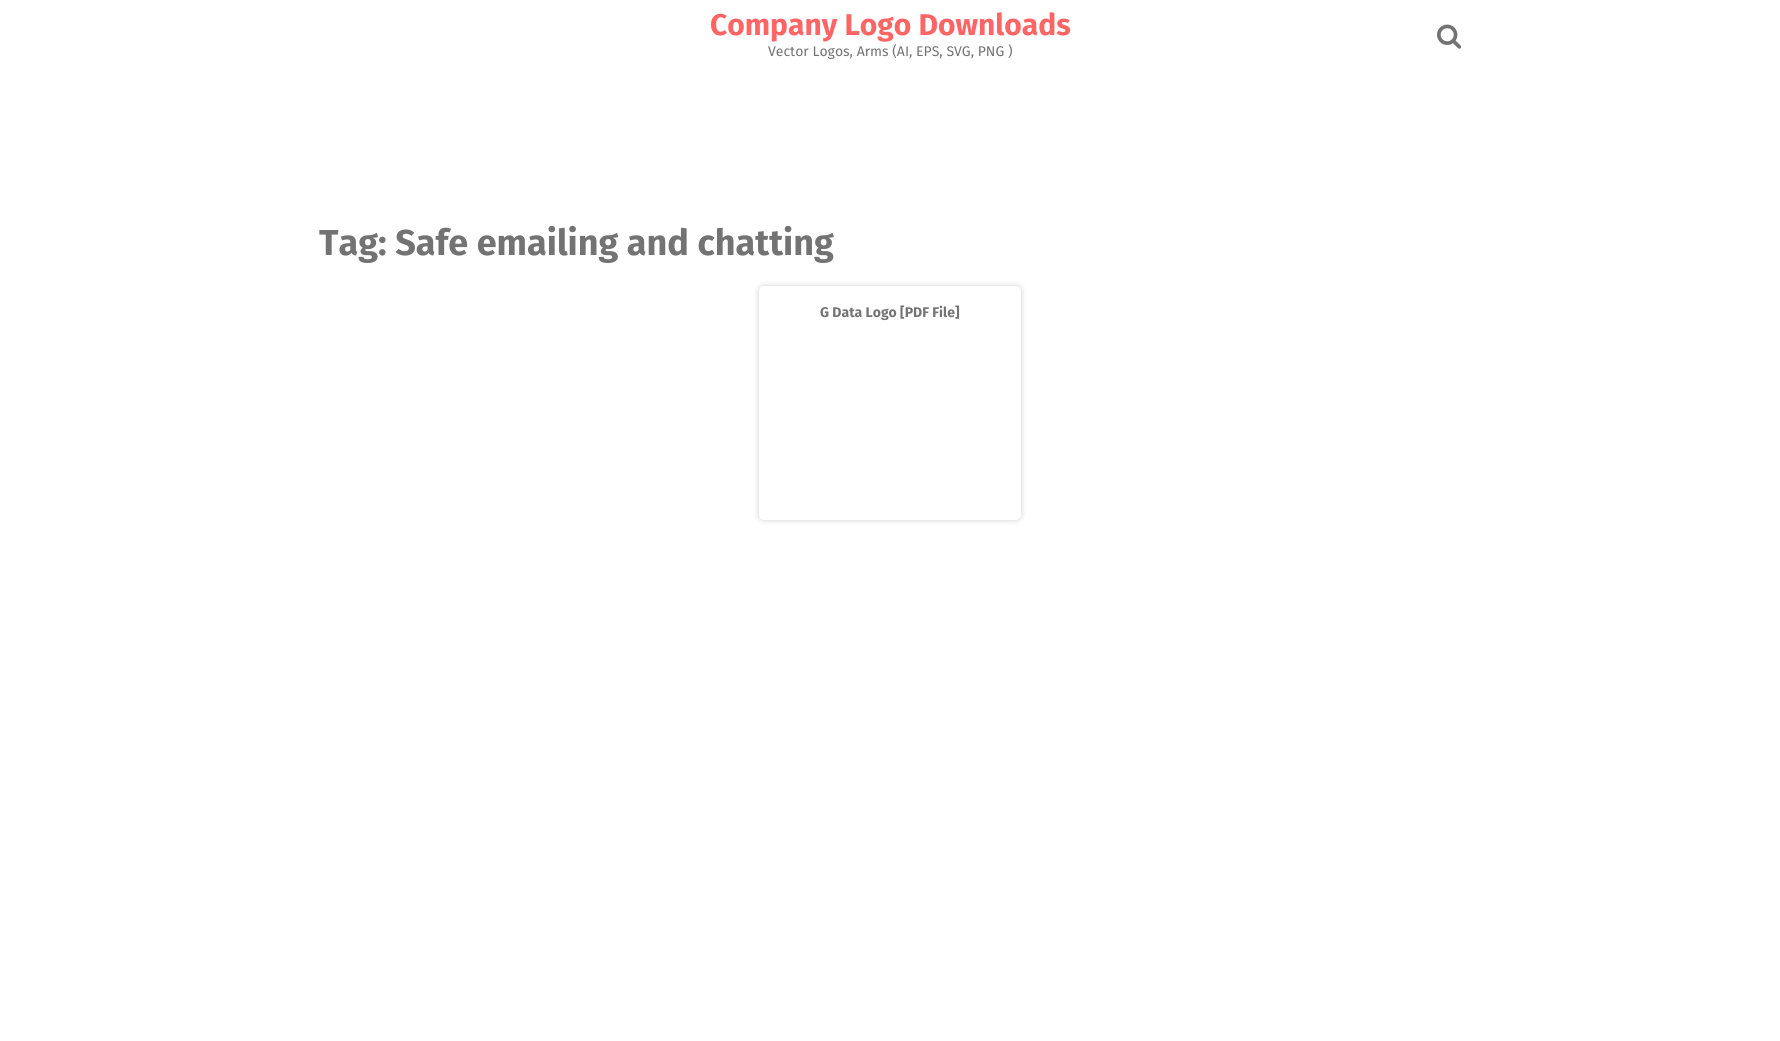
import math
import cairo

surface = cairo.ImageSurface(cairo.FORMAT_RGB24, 1780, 1041)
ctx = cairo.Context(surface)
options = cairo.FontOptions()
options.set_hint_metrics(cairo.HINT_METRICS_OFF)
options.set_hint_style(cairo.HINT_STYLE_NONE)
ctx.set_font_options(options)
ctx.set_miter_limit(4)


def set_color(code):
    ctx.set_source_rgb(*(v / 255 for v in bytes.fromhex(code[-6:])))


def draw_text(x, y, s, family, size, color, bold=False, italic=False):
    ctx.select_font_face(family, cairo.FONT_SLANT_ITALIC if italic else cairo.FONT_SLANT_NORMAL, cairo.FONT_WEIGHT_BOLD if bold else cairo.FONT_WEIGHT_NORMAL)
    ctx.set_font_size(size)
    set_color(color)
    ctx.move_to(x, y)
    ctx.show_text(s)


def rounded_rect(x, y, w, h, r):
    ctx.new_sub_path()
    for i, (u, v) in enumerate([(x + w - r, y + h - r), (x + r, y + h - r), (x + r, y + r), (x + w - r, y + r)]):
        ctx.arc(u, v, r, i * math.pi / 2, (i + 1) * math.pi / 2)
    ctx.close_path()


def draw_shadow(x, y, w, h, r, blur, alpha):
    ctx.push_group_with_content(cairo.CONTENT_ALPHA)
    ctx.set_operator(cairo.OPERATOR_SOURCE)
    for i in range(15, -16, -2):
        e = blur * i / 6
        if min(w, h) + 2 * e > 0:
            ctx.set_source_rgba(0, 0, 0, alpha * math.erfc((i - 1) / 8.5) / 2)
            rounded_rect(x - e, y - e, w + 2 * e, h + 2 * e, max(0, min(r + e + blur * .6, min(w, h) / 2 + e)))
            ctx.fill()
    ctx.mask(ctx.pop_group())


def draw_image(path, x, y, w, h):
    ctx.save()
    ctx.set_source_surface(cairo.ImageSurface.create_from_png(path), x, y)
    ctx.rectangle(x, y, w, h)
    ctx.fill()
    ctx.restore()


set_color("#ffffff")
ctx.paint()
draw_text(710, 35, "Company Logo Downloads", "Fira Sans", 30, "#ff6565", bold=True)
draw_text(768, 56, "Vector Logos, Arms (AI, EPS, SVG, PNG )", "Fira Sans", 14, "#737373")
draw_image("assets/img1.png", 1437, 24, 25, 25)
draw_text(319, 255, "Tag: Safe emailing and chatting", "Fira Sans", 36, "#737373", bold=True)
set_color("#000000")
draw_shadow(759, 286, 262, 234, 5, 3, 0.2)
set_color("#ffffff")
rounded_rect(759, 286, 262, 234, 5)
ctx.fill()
draw_text(820, 317, "G Data Logo [PDF File]", "Fira Sans", 14, "#737373", bold=True)
surface.write_to_png("output.png")
